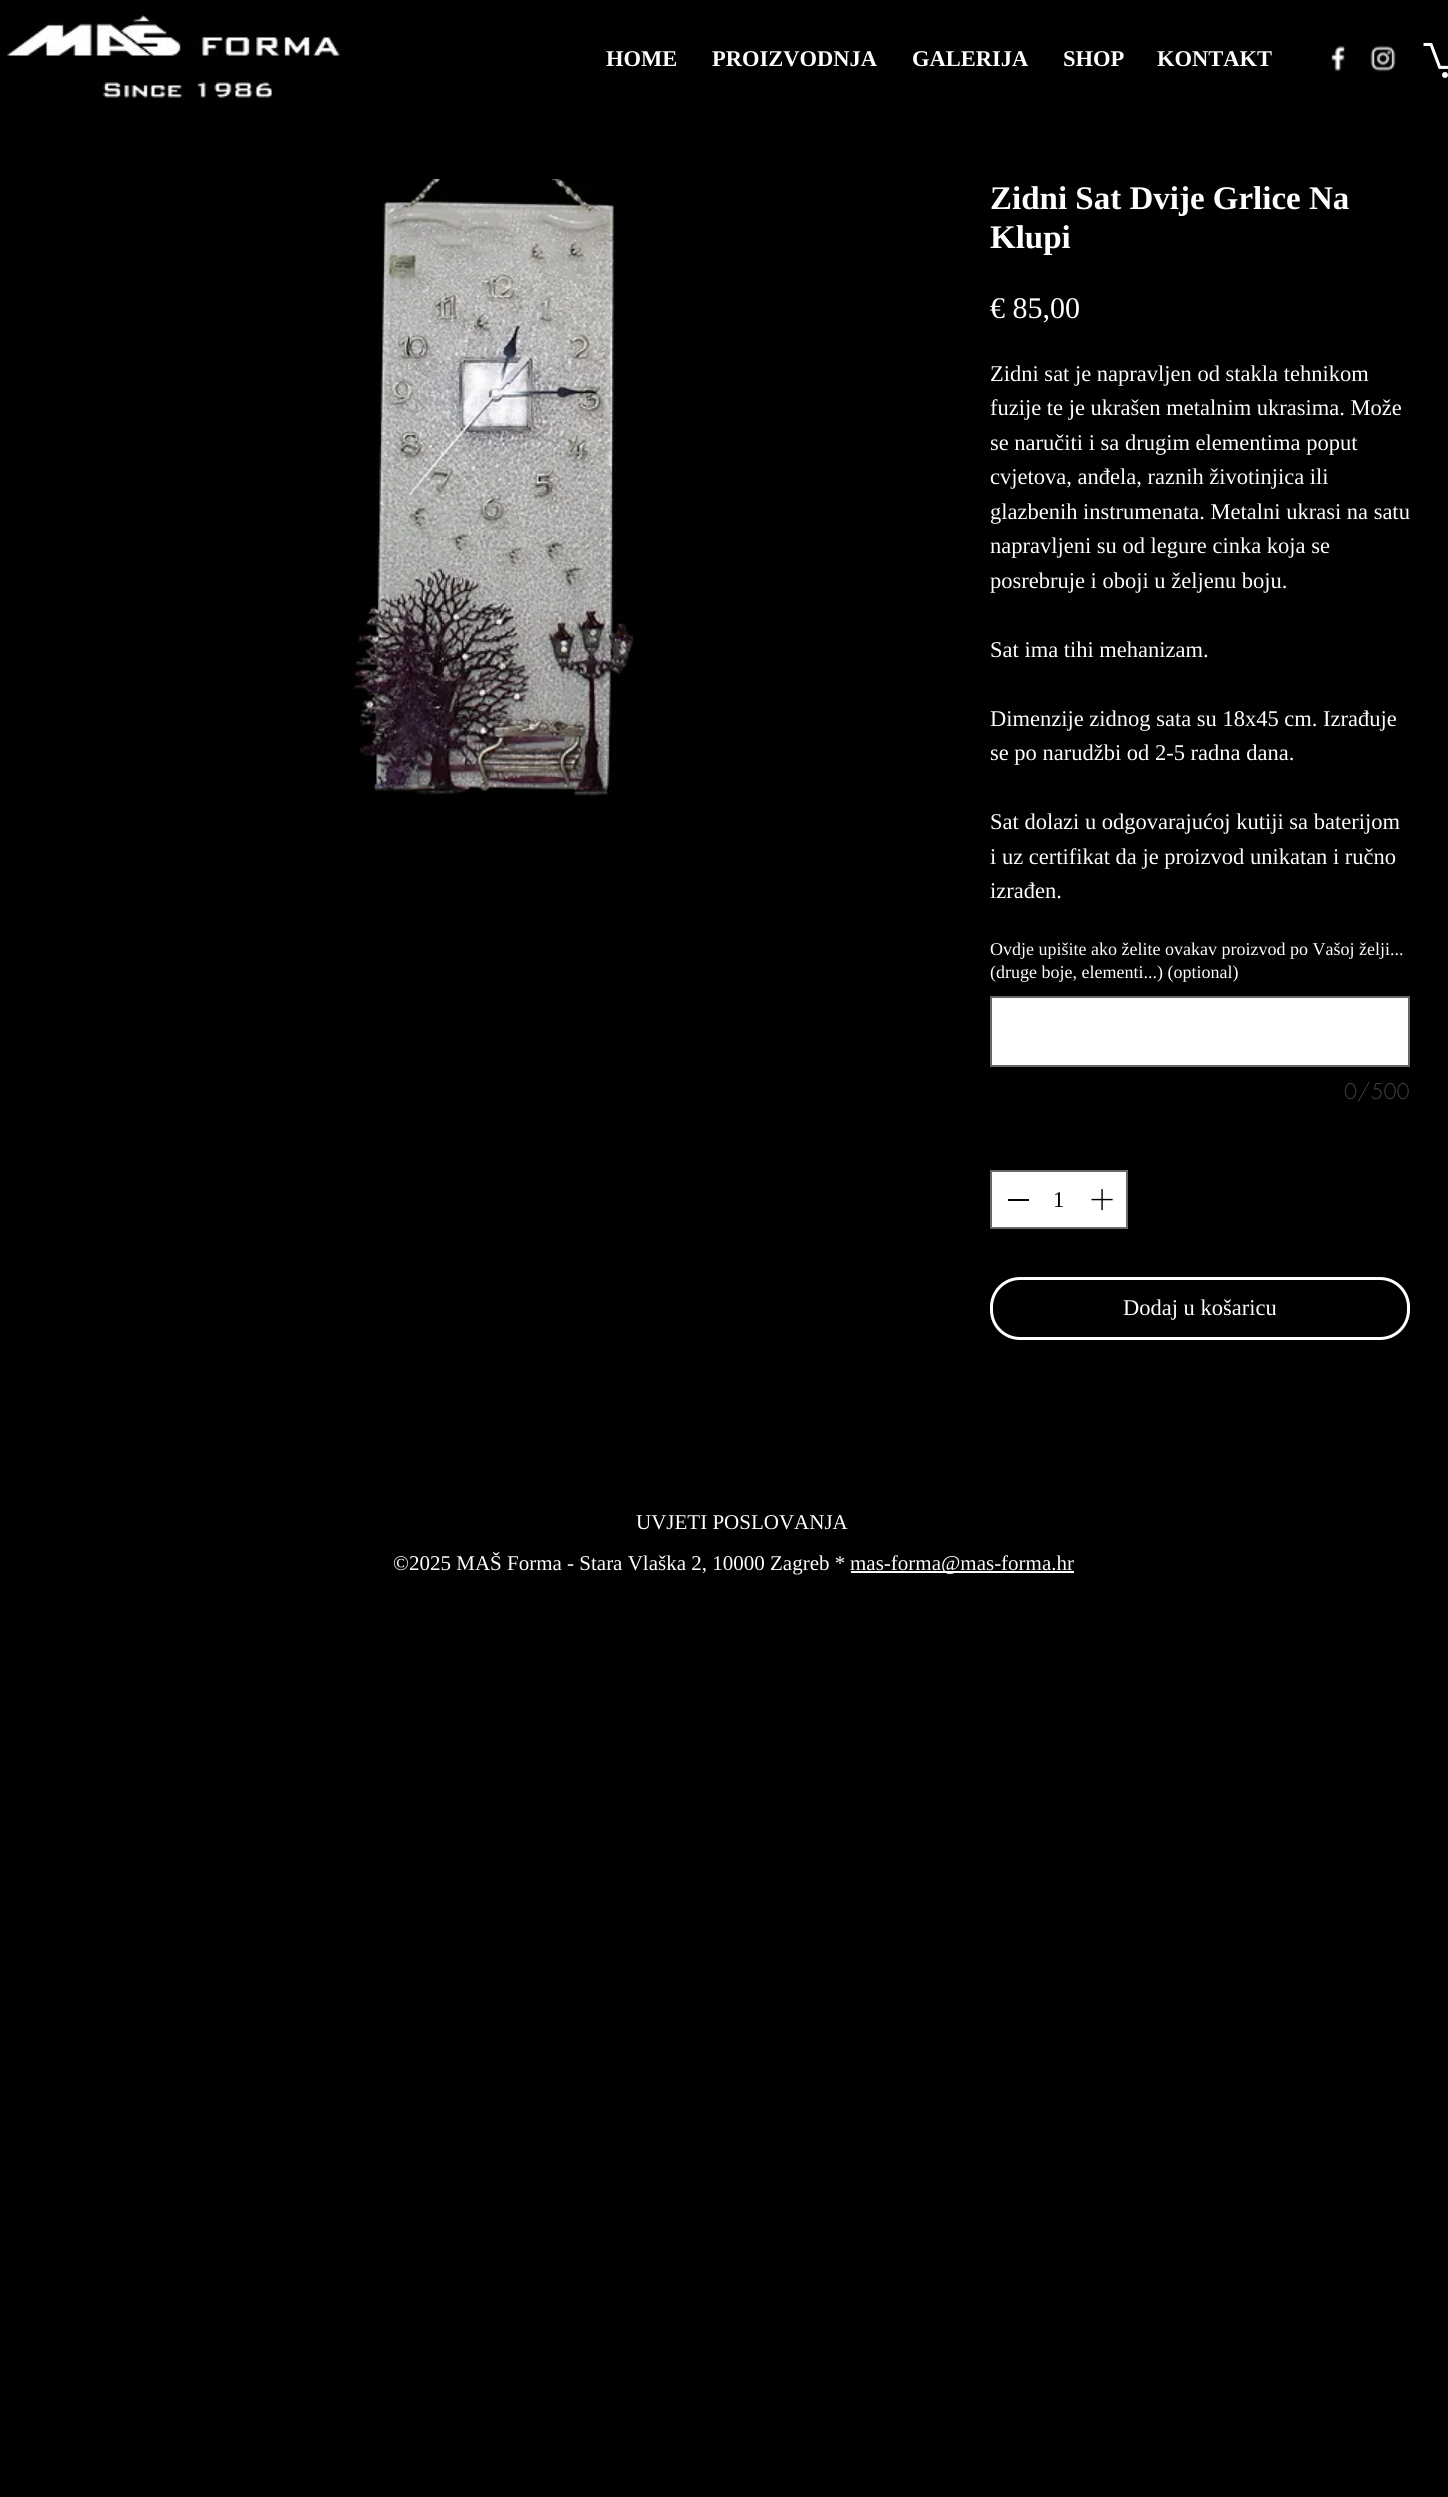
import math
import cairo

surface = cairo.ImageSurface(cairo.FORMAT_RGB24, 1448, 2497)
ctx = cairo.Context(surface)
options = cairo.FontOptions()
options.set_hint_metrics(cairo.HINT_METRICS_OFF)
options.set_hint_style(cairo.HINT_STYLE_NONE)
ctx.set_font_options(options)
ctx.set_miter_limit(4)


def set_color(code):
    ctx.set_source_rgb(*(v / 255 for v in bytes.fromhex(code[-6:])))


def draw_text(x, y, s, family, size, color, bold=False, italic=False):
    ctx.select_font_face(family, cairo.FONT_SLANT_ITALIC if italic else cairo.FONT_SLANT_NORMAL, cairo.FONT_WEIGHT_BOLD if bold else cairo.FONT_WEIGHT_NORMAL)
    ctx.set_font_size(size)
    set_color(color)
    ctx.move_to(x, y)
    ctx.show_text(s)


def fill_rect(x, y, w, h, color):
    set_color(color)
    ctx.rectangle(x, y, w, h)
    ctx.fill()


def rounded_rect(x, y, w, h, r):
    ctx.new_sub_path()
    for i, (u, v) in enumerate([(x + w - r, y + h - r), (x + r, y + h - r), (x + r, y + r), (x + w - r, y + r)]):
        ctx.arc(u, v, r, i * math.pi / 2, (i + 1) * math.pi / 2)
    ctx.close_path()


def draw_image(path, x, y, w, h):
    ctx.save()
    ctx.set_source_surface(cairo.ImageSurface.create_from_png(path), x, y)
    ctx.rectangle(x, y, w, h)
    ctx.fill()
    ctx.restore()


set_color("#000000")
ctx.paint()
draw_image("assets/img1.png", 7, 14, 334, 84)
draw_text(606, 66, "HOME", "Liberation Serif", 22.5, "#ffffff", bold=True)
draw_text(712, 66, "PROIZVODNJA", "Liberation Serif", 22.5, "#ffffff", bold=True)
draw_text(912, 66, "GALERIJA", "Liberation Serif", 22.5, "#ffffff", bold=True)
draw_text(1063, 66, "SHOP", "Liberation Serif", 22.5, "#ffffff", bold=True)
draw_text(1157, 66, "KONTAKT", "Liberation Serif", 22.5, "#ffffff", bold=True)
draw_image("assets/img2.png", 1331, 45, 14, 27)
draw_image("assets/img3.png", 1370, 45, 26, 27)
draw_image("assets/img4.png", 1423, 42, 25, 36)
draw_image("assets/img5.png", 353, 179, 281, 617)
draw_text(990, 209, "Zidni Sat Dvije Grlice Na", "Liberation Serif", 33, "#ffffff", bold=True)
draw_text(990, 248, "Klupi", "Liberation Serif", 33, "#ffffff", bold=True)
draw_text(990, 318, "€ 85,00", "Liberation Serif", 30, "#ffffff")
draw_text(990, 381, "Zidni sat je napravljen od stakla tehnikom", "Liberation Serif", 22.5, "#ffffff")
draw_text(990, 415, "fuzije te je ukrašen metalnim ukrasima. Može", "Liberation Serif", 22.5, "#ffffff")
draw_text(990, 450, "se naručiti i sa drugim elementima poput", "Liberation Serif", 22.5, "#ffffff")
draw_text(990, 484, "cvjetova, anđela, raznih životinjica ili", "Liberation Serif", 22.5, "#ffffff")
draw_text(990, 519, "glazbenih instrumenata. Metalni ukrasi na satu", "Liberation Serif", 22.5, "#ffffff")
draw_text(990, 553, "napravljeni su od legure cinka koja se", "Liberation Serif", 22.5, "#ffffff")
draw_text(990, 588, "posrebruje i oboji u željenu boju.", "Liberation Serif", 22.5, "#ffffff")
draw_text(990, 657, "Sat ima tihi mehanizam.", "Liberation Serif", 22.5, "#ffffff")
draw_text(990, 726, "Dimenzije zidnog sata su 18x45 cm. Izrađuje", "Liberation Serif", 22.5, "#ffffff")
draw_text(990, 760, "se po narudžbi od 2-5 radna dana.", "Liberation Serif", 22.5, "#ffffff")
draw_text(990, 829, "Sat dolazi u odgovarajućoj kutiji sa baterijom", "Liberation Serif", 22.5, "#ffffff")
draw_text(990, 864, "i uz certifikat da je proizvod unikatan i ručno", "Liberation Serif", 22.5, "#ffffff")
draw_text(990, 898, "izrađen.", "Liberation Serif", 22.5, "#ffffff")
draw_text(990, 955, "Ovdje upišite ako želite ovakav proizvod po Vašoj želji...", "Liberation Serif", 18, "#ffffff")
draw_text(990, 978, "(druge boje, elementi...) (optional)", "Liberation Serif", 18, "#ffffff")
ctx.rectangle(991, 997, 418, 69)
ctx.fill_preserve()
set_color("#666666")
ctx.stroke()
draw_text(1344, 1099, "0/500", "futura Light", 21, "#444444")
set_color("#ffffff")
ctx.rectangle(991, 1171, 136, 57)
ctx.fill_preserve()
set_color("#696969")
ctx.stroke()
fill_rect(1008, 1199, 21, 2, "#000000")
draw_text(1053, 1207, "1", "Liberation Serif", 22.5, "#000000")
draw_image("assets/img6.png", 1091, 1189, 22, 22)
rounded_rect(991.5, 1278.5, 417, 60, 28.5)
set_color("#ffffff")
ctx.set_line_width(3)
ctx.stroke()
draw_text(1123, 1315, "Dodaj u košaricu", "Liberation Serif", 22.5, "#ffffff")
draw_text(636, 1529, "UVJETI POSLOVANJA", "Liberation Serif", 21, "#ffffff")
draw_text(393, 1570, "©2025 MAŠ Forma - Stara Vlaška 2, 10000 Zagreb *", "Liberation Serif", 21, "#ffffff")
fill_rect(851, 1571, 223, 2, "#ffffff")
draw_text(850, 1570, "mas-forma@mas-forma.hr", "Liberation Serif", 21, "#ffffff")
surface.write_to_png("output.png")
